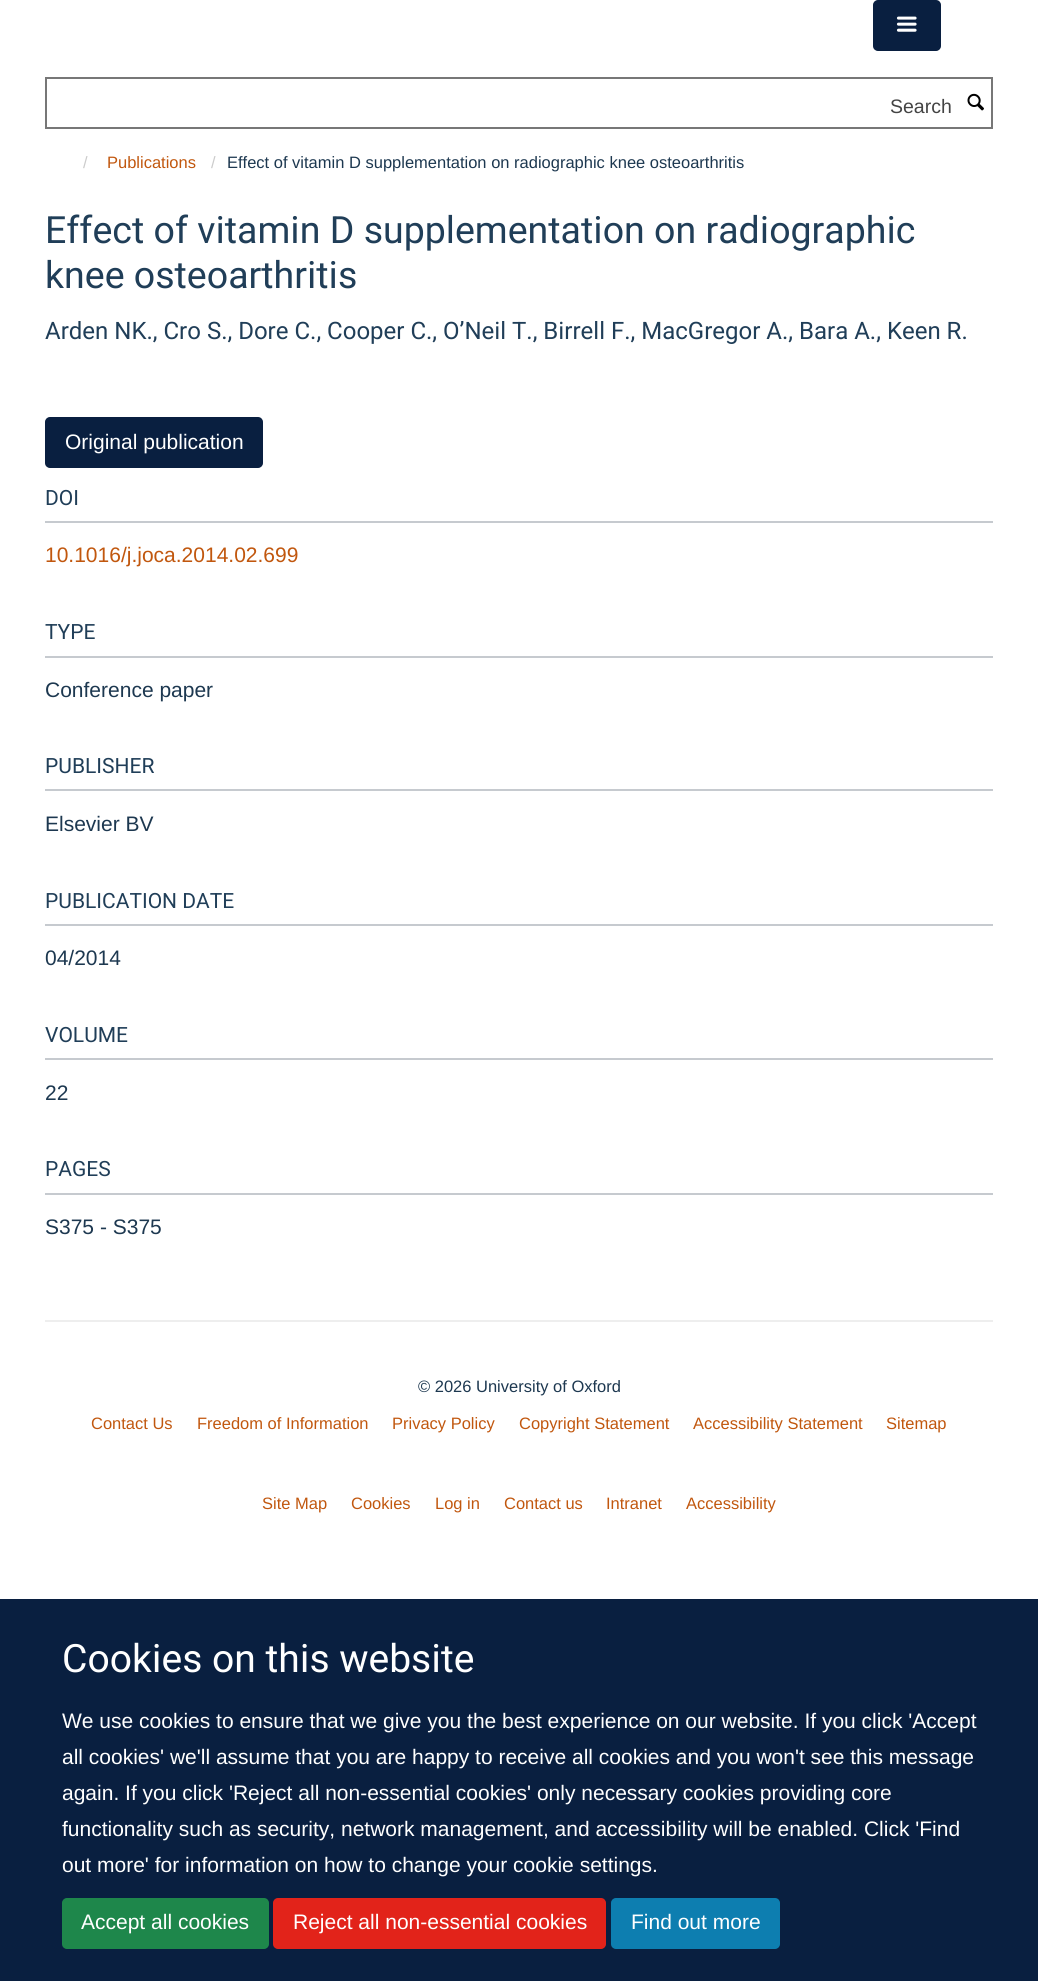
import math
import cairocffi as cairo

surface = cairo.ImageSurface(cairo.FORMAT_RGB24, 1038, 1981)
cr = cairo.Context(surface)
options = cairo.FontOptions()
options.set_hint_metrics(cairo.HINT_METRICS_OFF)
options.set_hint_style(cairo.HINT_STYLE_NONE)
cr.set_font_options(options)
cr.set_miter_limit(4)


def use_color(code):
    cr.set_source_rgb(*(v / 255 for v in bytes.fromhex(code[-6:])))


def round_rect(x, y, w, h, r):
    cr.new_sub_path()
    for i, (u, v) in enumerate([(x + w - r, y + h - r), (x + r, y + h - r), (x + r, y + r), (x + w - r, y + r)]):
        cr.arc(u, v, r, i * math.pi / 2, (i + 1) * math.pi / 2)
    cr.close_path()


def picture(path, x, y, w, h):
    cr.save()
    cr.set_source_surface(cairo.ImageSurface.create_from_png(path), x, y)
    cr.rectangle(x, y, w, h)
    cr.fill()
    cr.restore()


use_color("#ffffff")
cr.paint()
use_color("#091f40")
round_rect(874, 1, 66, 49, 4)
cr.fill_preserve()
cr.stroke()
picture("img1.png", 896, 16, 21, 16)
cr.rectangle(46, 78, 946, 50)
use_color("#777777")
cr.stroke()
cr.select_font_face("Liberation Sans")
cr.set_font_size(19.5)
use_color("#444444")
cr.move_to(890, 113)
cr.show_text("Search")
picture("img2.png", 967, 93, 17, 18)
cr.set_font_size(16.5)
use_color("#cccccc")
cr.move_to(83, 168)
cr.show_text("/")
use_color("#c1570e")
cr.move_to(107, 168)
cr.show_text("Publications")
use_color("#cccccc")
cr.move_to(211, 168)
cr.show_text("/")
use_color("#1d3850")
cr.move_to(227, 168)
cr.show_text("Effect of vitamin D supplementation on radiographic knee osteoarthritis")
cr.select_font_face("Heebo")
cr.set_font_size(37.5)
use_color("#203e58")
cr.move_to(45, 243)
cr.show_text("Effect of vitamin D supplementation on radiographic")
cr.move_to(45, 288)
cr.show_text("knee osteoarthritis")
cr.set_font_size(24)
cr.move_to(45, 339)
cr.show_text("Arden NK., Cro S., Dore C., Cooper C., O’Neil T., Birrell F., MacGregor A., Bara A., Keen R.")
use_color("#091f40")
round_rect(46, 418, 216, 49, 4)
cr.fill_preserve()
cr.stroke()
cr.select_font_face("Liberation Sans")
cr.set_font_size(21)
use_color("#ffffff")
cr.move_to(65, 449)
cr.show_text("Original publication")
use_color("#c6cacf")
cr.rectangle(45, 521, 948, 2)
cr.fill()
cr.select_font_face("Heebo")
use_color("#203e58")
cr.move_to(45, 505)
cr.show_text("DOI")
cr.select_font_face("Liberation Sans")
use_color("#c1570e")
cr.move_to(45, 562)
cr.show_text("10.1016/j.joca.2014.02.699")
use_color("#c6cacf")
cr.rectangle(45, 656, 948, 2)
cr.fill()
cr.select_font_face("Heebo")
use_color("#203e58")
cr.move_to(45, 639)
cr.show_text("TYPE")
cr.select_font_face("Liberation Sans")
use_color("#1d3850")
cr.move_to(45, 697)
cr.show_text("Conference paper")
use_color("#c6cacf")
cr.rectangle(45, 789, 948, 2)
cr.fill()
cr.select_font_face("Heebo")
use_color("#203e58")
cr.move_to(45, 773)
cr.show_text("PUBLISHER")
cr.select_font_face("Liberation Sans")
use_color("#1d3850")
cr.move_to(45, 831)
cr.show_text("Elsevier BV")
use_color("#c6cacf")
cr.rectangle(45, 924, 948, 2)
cr.fill()
cr.select_font_face("Heebo")
use_color("#203e58")
cr.move_to(45, 908)
cr.show_text("PUBLICATION DATE")
cr.select_font_face("Liberation Sans")
use_color("#1d3850")
cr.move_to(45, 965)
cr.show_text("04/2014")
use_color("#c6cacf")
cr.rectangle(45, 1058, 948, 2)
cr.fill()
cr.select_font_face("Heebo")
use_color("#203e58")
cr.move_to(45, 1042)
cr.show_text("VOLUME")
cr.select_font_face("Liberation Sans")
use_color("#1d3850")
cr.move_to(45, 1100)
cr.show_text("22")
use_color("#c6cacf")
cr.rectangle(45, 1193, 948, 2)
cr.fill()
cr.select_font_face("Heebo")
use_color("#203e58")
cr.move_to(45, 1176)
cr.show_text("PAGES")
cr.select_font_face("Liberation Sans")
use_color("#1d3850")
cr.move_to(45, 1234)
cr.show_text("S375 - S375")
use_color("#eeeeee")
cr.rectangle(45, 1320, 948, 2)
cr.fill()
cr.set_font_size(16.5)
use_color("#1d3850")
cr.move_to(418, 1392)
cr.show_text("© 2026 University of Oxford")
use_color("#c1570e")
cr.move_to(91, 1429)
cr.show_text("Contact Us")
cr.move_to(197, 1429)
cr.show_text("Freedom of Information")
cr.move_to(392, 1429)
cr.show_text("Privacy Policy")
cr.move_to(519, 1429)
cr.show_text("Copyright Statement")
cr.move_to(693, 1429)
cr.show_text("Accessibility Statement")
cr.move_to(886, 1429)
cr.show_text("Sitemap")
cr.move_to(262, 1509)
cr.show_text("Site Map")
cr.move_to(351, 1509)
cr.show_text("Cookies")
cr.move_to(435, 1509)
cr.show_text("Log in")
cr.move_to(504, 1509)
cr.show_text("Contact us")
cr.move_to(606, 1509)
cr.show_text("Intranet")
cr.move_to(686, 1509)
cr.show_text("Accessibility")
use_color("#091f40")
cr.rectangle(0, 1599, 1038, 382)
cr.fill()
cr.select_font_face("Heebo")
cr.set_font_size(39)
use_color("#ffffff")
cr.move_to(62, 1672)
cr.show_text("Cookies on this website")
cr.select_font_face("Liberation Sans")
cr.set_font_size(21)
cr.move_to(62, 1728)
cr.show_text("We use cookies to ensure that we give you the best experience on our website. If you click 'Accept")
cr.move_to(62, 1764)
cr.show_text("all cookies' we'll assume that you are happy to receive all cookies and you won't see this message")
cr.move_to(62, 1800)
cr.show_text("again. If you click 'Reject all non-essential cookies' only necessary cookies providing core")
cr.move_to(62, 1836)
cr.show_text("functionality such as security, network management, and accessibility will be enabled. Click 'Find")
cr.move_to(62, 1872)
cr.show_text("out more' for information on how to change your cookie settings.")
use_color("#1e874b")
round_rect(63, 1899, 205, 49, 4)
cr.fill_preserve()
cr.stroke()
use_color("#ffffff")
cr.move_to(81, 1929)
cr.show_text("Accept all cookies")
use_color("#e2231a")
round_rect(274, 1899, 331, 49, 4)
cr.fill_preserve()
cr.stroke()
use_color("#ffffff")
cr.move_to(293, 1929)
cr.show_text("Reject all non-essential cookies")
use_color("#0d7eb0")
round_rect(612, 1899, 167, 49, 4)
cr.fill_preserve()
cr.stroke()
use_color("#ffffff")
cr.move_to(631, 1929)
cr.show_text("Find out more")
surface.write_to_png("result.png")
